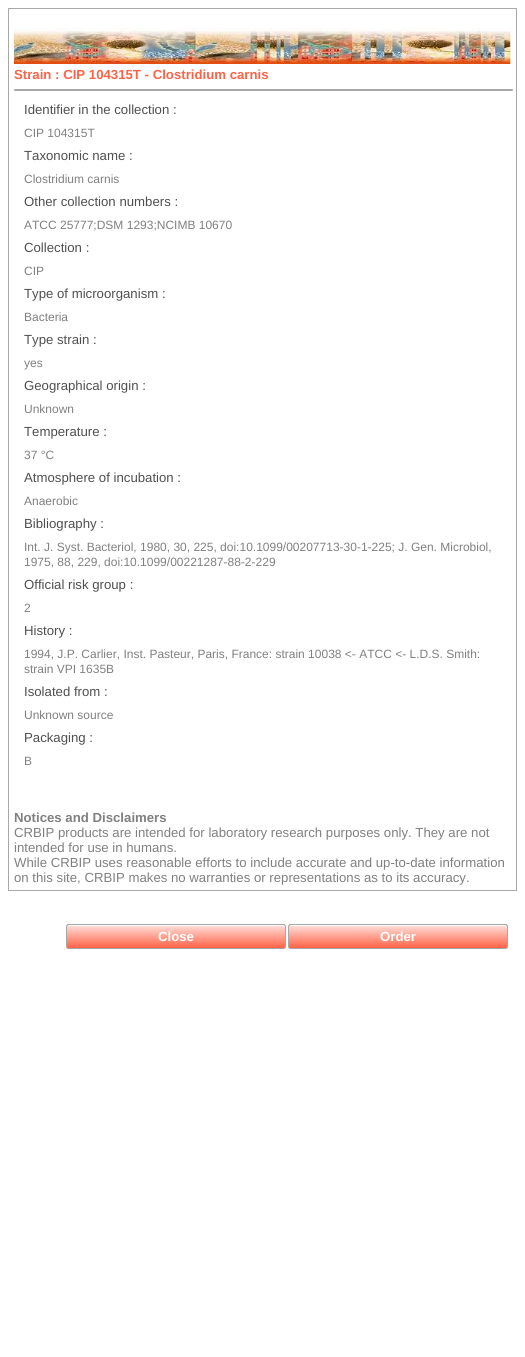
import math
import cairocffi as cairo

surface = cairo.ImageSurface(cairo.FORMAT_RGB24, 525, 1357)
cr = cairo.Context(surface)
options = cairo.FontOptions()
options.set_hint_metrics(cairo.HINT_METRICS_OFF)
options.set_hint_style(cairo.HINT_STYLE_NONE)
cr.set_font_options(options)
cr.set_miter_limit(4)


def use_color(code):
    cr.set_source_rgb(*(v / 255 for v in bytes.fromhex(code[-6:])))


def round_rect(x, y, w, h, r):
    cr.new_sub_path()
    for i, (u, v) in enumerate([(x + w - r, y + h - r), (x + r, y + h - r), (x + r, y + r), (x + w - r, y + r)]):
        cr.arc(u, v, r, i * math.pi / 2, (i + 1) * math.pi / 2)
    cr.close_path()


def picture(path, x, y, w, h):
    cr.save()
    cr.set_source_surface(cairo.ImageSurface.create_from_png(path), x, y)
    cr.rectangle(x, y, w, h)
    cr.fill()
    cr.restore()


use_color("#ffffff")
cr.paint()
cr.rectangle(8.5, 8.5, 508, 882)
use_color("#a8a8a8")
cr.set_line_width(1)
cr.stroke()
picture("img1.png", 14, 28, 497, 36)
cr.select_font_face("Liberation Sans", cairo.FONT_SLANT_NORMAL, cairo.FONT_WEIGHT_BOLD)
cr.set_font_size(13.2)
use_color("#ff6347")
cr.move_to(14, 79)
cr.show_text("Strain : CIP 104315T - Clostridium carnis")
use_color("#a8a8a8")
round_rect(14, 89, 499, 2, 1)
cr.fill()
cr.select_font_face("Liberation Sans")
use_color("#4f4f4f")
cr.move_to(24, 114)
cr.show_text("Identifier in the collection :")
cr.set_font_size(12)
use_color("#808080")
cr.move_to(24, 137)
cr.show_text("CIP 104315T")
cr.set_font_size(13.2)
use_color("#4f4f4f")
cr.move_to(24, 160)
cr.show_text("Taxonomic name :")
cr.set_font_size(12)
use_color("#808080")
cr.move_to(24, 183)
cr.show_text("Clostridium carnis")
cr.set_font_size(13.2)
use_color("#4f4f4f")
cr.move_to(24, 206)
cr.show_text("Other collection numbers :")
cr.set_font_size(12)
use_color("#808080")
cr.move_to(24, 229)
cr.show_text("ATCC 25777;DSM 1293;NCIMB 10670")
cr.set_font_size(13.2)
use_color("#4f4f4f")
cr.move_to(24, 252)
cr.show_text("Collection :")
cr.set_font_size(12)
use_color("#808080")
cr.move_to(24, 275)
cr.show_text("CIP")
cr.set_font_size(13.2)
use_color("#4f4f4f")
cr.move_to(24, 298)
cr.show_text("Type of microorganism :")
cr.set_font_size(12)
use_color("#808080")
cr.move_to(24, 321)
cr.show_text("Bacteria")
cr.set_font_size(13.2)
use_color("#4f4f4f")
cr.move_to(24, 344)
cr.show_text("Type strain :")
cr.set_font_size(12)
use_color("#808080")
cr.move_to(24, 367)
cr.show_text("yes")
cr.set_font_size(13.2)
use_color("#4f4f4f")
cr.move_to(24, 390)
cr.show_text("Geographical origin :")
cr.set_font_size(12)
use_color("#808080")
cr.move_to(24, 413)
cr.show_text("Unknown")
cr.set_font_size(13.2)
use_color("#4f4f4f")
cr.move_to(24, 436)
cr.show_text("Temperature :")
cr.set_font_size(12)
use_color("#808080")
cr.move_to(24, 459)
cr.show_text("37 °C")
cr.set_font_size(13.2)
use_color("#4f4f4f")
cr.move_to(24, 482)
cr.show_text("Atmosphere of incubation :")
cr.set_font_size(12)
use_color("#808080")
cr.move_to(24, 505)
cr.show_text("Anaerobic")
cr.set_font_size(13.2)
use_color("#4f4f4f")
cr.move_to(24, 528)
cr.show_text("Bibliography :")
cr.set_font_size(12)
use_color("#808080")
cr.move_to(24, 551)
cr.show_text("Int. J. Syst. Bacteriol, 1980, 30, 225, doi:10.1099/00207713-30-1-225; J. Gen. Microbiol,")
cr.move_to(24, 566)
cr.show_text("1975, 88, 229, doi:10.1099/00221287-88-2-229")
cr.set_font_size(13.2)
use_color("#4f4f4f")
cr.move_to(24, 589)
cr.show_text("Official risk group :")
cr.set_font_size(12)
use_color("#808080")
cr.move_to(24, 612)
cr.show_text("2")
cr.set_font_size(13.2)
use_color("#4f4f4f")
cr.move_to(24, 635)
cr.show_text("History :")
cr.set_font_size(12)
use_color("#808080")
cr.move_to(24, 658)
cr.show_text("1994, J.P. Carlier, Inst. Pasteur, Paris, France: strain 10038 <- ATCC <- L.D.S. Smith:")
cr.move_to(24, 673)
cr.show_text("strain VPI 1635B")
cr.set_font_size(13.2)
use_color("#4f4f4f")
cr.move_to(24, 696)
cr.show_text("Isolated from :")
cr.set_font_size(12)
use_color("#808080")
cr.move_to(24, 719)
cr.show_text("Unknown source")
cr.set_font_size(13.2)
use_color("#4f4f4f")
cr.move_to(24, 742)
cr.show_text("Packaging :")
cr.set_font_size(12)
use_color("#808080")
cr.move_to(24, 765)
cr.show_text("B")
cr.select_font_face("Liberation Sans", cairo.FONT_SLANT_NORMAL, cairo.FONT_WEIGHT_BOLD)
cr.set_font_size(13.2)
cr.move_to(14, 822)
cr.show_text("Notices and Disclaimers")
cr.select_font_face("Liberation Sans")
cr.move_to(14, 837)
cr.show_text("CRBIP products are intended for laboratory research purposes only. They are not")
cr.move_to(14, 852)
cr.show_text("intended for use in humans.")
cr.move_to(14, 867)
cr.show_text("While CRBIP uses reasonable efforts to include accurate and up-to-date information")
cr.move_to(14, 882)
cr.show_text("on this site, CRBIP makes no warranties or representations as to its accuracy.")
use_color("#ff6347")
round_rect(66, 924, 220, 25, 3)
cr.fill()
cr.save()
round_rect(66, 924, 220, 25, 3)
cr.clip()
gradient = cairo.LinearGradient(67, 925, 67, 948)
gradient.add_color_stop_rgba(0, 1, 1, 1, 0.8)
gradient.add_color_stop_rgba(1, 1, 1, 1, 0)
cr.set_source(gradient)
cr.rectangle(66, 925, 220, 22)
cr.fill()
cr.restore()
use_color("#ffffff")
cr.new_path()
cr.move_to(69, 926)
cr.line_to(283, 926)
cr.curve_to(284, 926, 285, 927, 285, 928)
cr.curve_to(285, 927, 285, 925, 283, 925)
cr.line_to(69, 925)
cr.line_to(68, 926)
cr.line_to(67, 928)
cr.curve_to(67, 927, 68, 926, 69, 926)
cr.close_path()
cr.fill()
round_rect(66.5, 924.5, 219, 24, 2.5)
use_color("#a8a8a8")
cr.stroke()
cr.select_font_face("Liberation Sans", cairo.FONT_SLANT_NORMAL, cairo.FONT_WEIGHT_BOLD)
use_color("#ffffff")
cr.move_to(158, 941)
cr.show_text("Close")
use_color("#ff6347")
round_rect(288, 924, 220, 25, 3)
cr.fill()
cr.save()
round_rect(288, 924, 220, 25, 3)
cr.clip()
gradient = cairo.LinearGradient(289, 925, 289, 948)
gradient.add_color_stop_rgba(0, 1, 1, 1, 0.8)
gradient.add_color_stop_rgba(1, 1, 1, 1, 0)
cr.set_source(gradient)
cr.rectangle(288, 925, 220, 22)
cr.fill()
cr.restore()
use_color("#ffffff")
cr.new_path()
cr.move_to(291, 926)
cr.line_to(505, 926)
cr.curve_to(506, 926, 507, 927, 507, 928)
cr.curve_to(507, 927, 507, 925, 505, 925)
cr.line_to(291, 925)
cr.line_to(290, 926)
cr.line_to(289, 928)
cr.curve_to(289, 927, 290, 926, 291, 926)
cr.close_path()
cr.fill()
round_rect(288.5, 924.5, 219, 24, 2.5)
use_color("#a8a8a8")
cr.stroke()
use_color("#ffffff")
cr.move_to(380, 941)
cr.show_text("Order")
surface.write_to_png("result.png")
